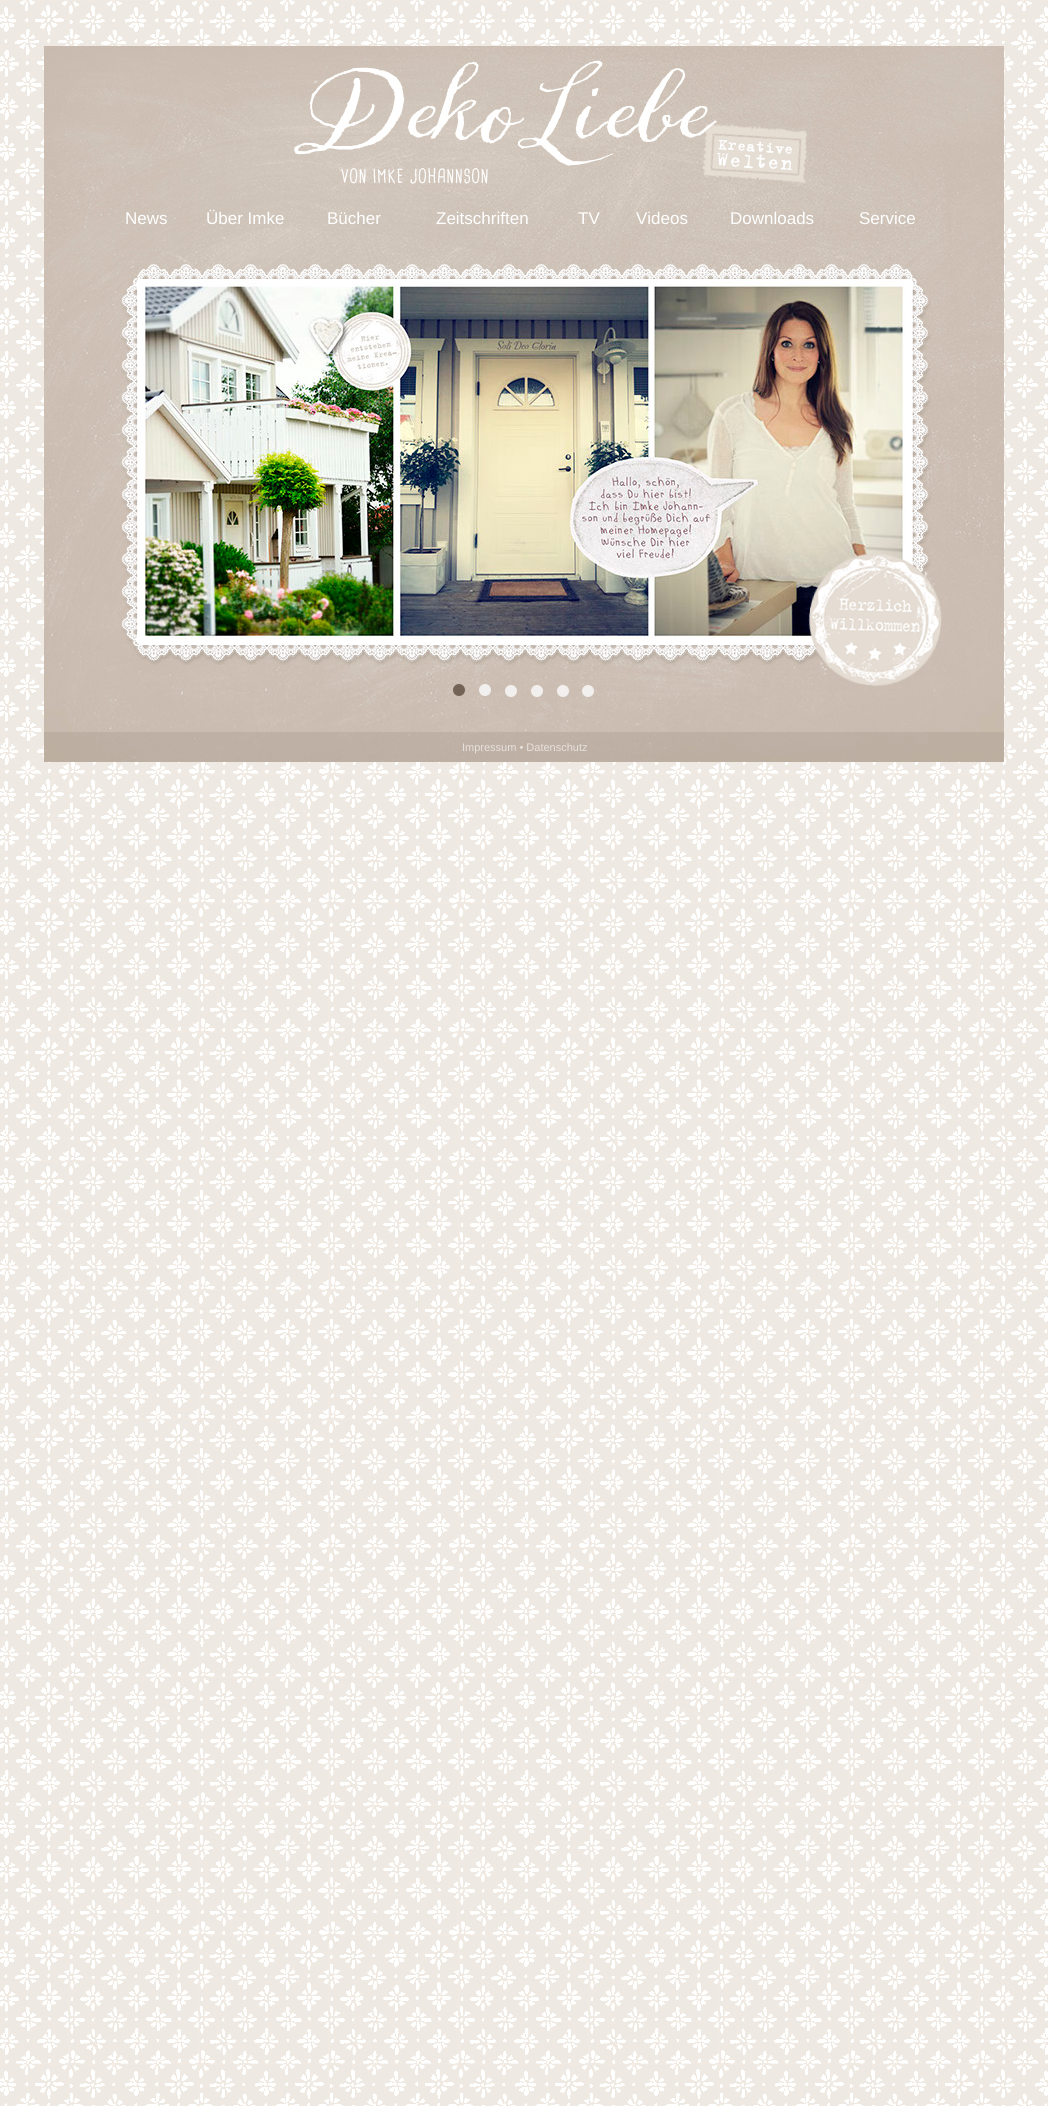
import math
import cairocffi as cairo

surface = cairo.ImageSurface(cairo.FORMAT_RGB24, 1048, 2106)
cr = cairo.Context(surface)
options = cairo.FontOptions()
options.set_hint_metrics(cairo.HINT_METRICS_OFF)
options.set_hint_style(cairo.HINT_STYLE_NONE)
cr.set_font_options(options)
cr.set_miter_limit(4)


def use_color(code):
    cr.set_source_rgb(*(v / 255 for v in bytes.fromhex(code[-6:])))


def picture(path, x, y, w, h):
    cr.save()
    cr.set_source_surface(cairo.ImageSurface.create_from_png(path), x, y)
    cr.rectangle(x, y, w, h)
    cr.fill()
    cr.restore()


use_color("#ffffff")
cr.paint()
picture("img1.png", 0, 0, 1048, 2106)
picture("img2.png", 44, 46, 960, 716)
cr.select_font_face("Liberation Sans")
cr.set_font_size(17)
use_color("#ffffff")
cr.move_to(125, 224)
cr.show_text("News")
cr.move_to(206, 224)
cr.show_text("Über Imke")
cr.move_to(327, 224)
cr.show_text("Bücher")
cr.move_to(436, 224)
cr.show_text("Zeitschriften")
cr.move_to(578, 224)
cr.show_text("TV")
cr.move_to(636, 224)
cr.show_text("Videos")
cr.move_to(730, 224)
cr.show_text("Downloads")
cr.move_to(859, 224)
cr.show_text("Service")
picture("img3.png", 121, 264, 810, 401)
cr.rectangle(138, 279, 771, 365)
cr.fill()
picture("img4.png", 145, 279, 760, 360)
use_color("#736357")
cr.arc(459, 690, 6, 0, 2 * math.pi)
cr.fill()
use_color("#f2f0ee")
cr.arc(485, 690, 6, 0, 2 * math.pi)
cr.fill()
cr.arc(511, 691, 6, 0, 2 * math.pi)
cr.fill()
cr.arc(537, 691, 6, 0, 2 * math.pi)
cr.fill()
cr.arc(563, 691, 6, 0, 2 * math.pi)
cr.fill()
cr.arc(588, 691, 6, 0, 2 * math.pi)
cr.fill()
picture("img5.png", 808, 553, 134, 133)
cr.set_source_rgba(0.627, 0.576, 0.533, 0.3)
cr.rectangle(44, 732, 960, 30)
cr.fill()
cr.set_font_size(11)
use_color("#e7e2dd")
cr.move_to(462, 751)
cr.show_text("Impressum • Datenschutz")
surface.write_to_png("result.png")
